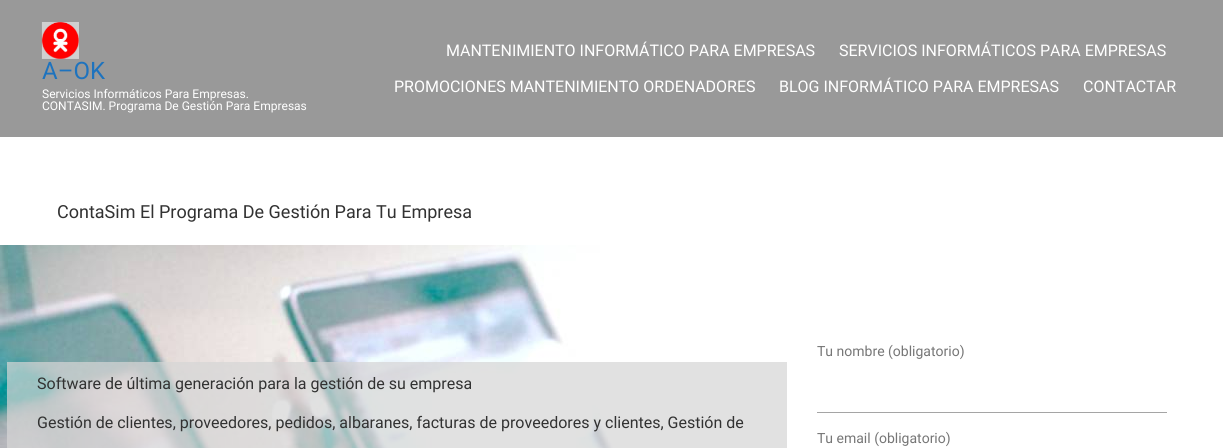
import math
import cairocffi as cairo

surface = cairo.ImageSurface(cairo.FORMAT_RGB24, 1223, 448)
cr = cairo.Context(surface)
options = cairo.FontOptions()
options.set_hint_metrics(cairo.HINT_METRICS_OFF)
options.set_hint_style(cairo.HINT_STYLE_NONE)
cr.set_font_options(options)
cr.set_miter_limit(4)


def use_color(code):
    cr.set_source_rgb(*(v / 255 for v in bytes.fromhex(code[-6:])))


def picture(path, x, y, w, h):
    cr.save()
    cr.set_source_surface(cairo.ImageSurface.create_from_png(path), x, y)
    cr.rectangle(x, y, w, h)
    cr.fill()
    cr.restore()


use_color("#ffffff")
cr.paint()
use_color("#999999")
cr.rectangle(0, 0, 1223, 137)
cr.fill()
picture("img1.png", 41, 22, 38, 37)
cr.select_font_face("Roboto")
cr.set_font_size(24)
use_color("#1e73be")
cr.move_to(42, 79)
cr.show_text("A–OK")
cr.set_font_size(12)
use_color("#ffffff")
cr.move_to(42, 98)
cr.show_text("Servicios Informáticos Para Empresas.")
cr.move_to(42, 110)
cr.show_text("CONTASIM. Programa De Gestión Para Empresas")
cr.set_font_size(16)
cr.move_to(446, 56)
cr.show_text("MANTENIMIENTO INFORMÁTICO PARA EMPRESAS")
cr.move_to(839, 56)
cr.show_text("SERVICIOS INFORMÁTICOS PARA EMPRESAS")
cr.move_to(394, 92)
cr.show_text("PROMOCIONES MANTENIMIENTO ORDENADORES")
cr.move_to(779, 92)
cr.show_text("BLOG INFORMÁTICO PARA EMPRESAS")
cr.move_to(1083, 92)
cr.show_text("CONTACTAR")
cr.set_font_size(18)
use_color("#323232")
cr.move_to(57, 218)
cr.show_text("ContaSim El Programa De Gestión Para Tu Empresa")
picture("img2.png", 0, 245, 613, 203)
cr.set_source_rgba(0.839, 0.839, 0.839, 0.72)
cr.rectangle(7, 362, 780, 86)
cr.fill()
cr.set_font_size(16)
use_color("#323232")
cr.move_to(37, 389)
cr.show_text("Software de última generación para la gestión de su empresa")
cr.move_to(37, 428)
cr.show_text("Gestión de clientes, proveedores, pedidos, albaranes, facturas de proveedores y clientes, Gestión de")
cr.set_font_size(14)
use_color("#767676")
cr.move_to(817, 356)
cr.show_text("Tu nombre (obligatorio)")
use_color("#a5a5a5")
cr.rectangle(817, 412, 350, 1)
cr.fill()
use_color("#767676")
cr.move_to(817, 443)
cr.show_text("Tu email (obligatorio)")
surface.write_to_png("result.png")
